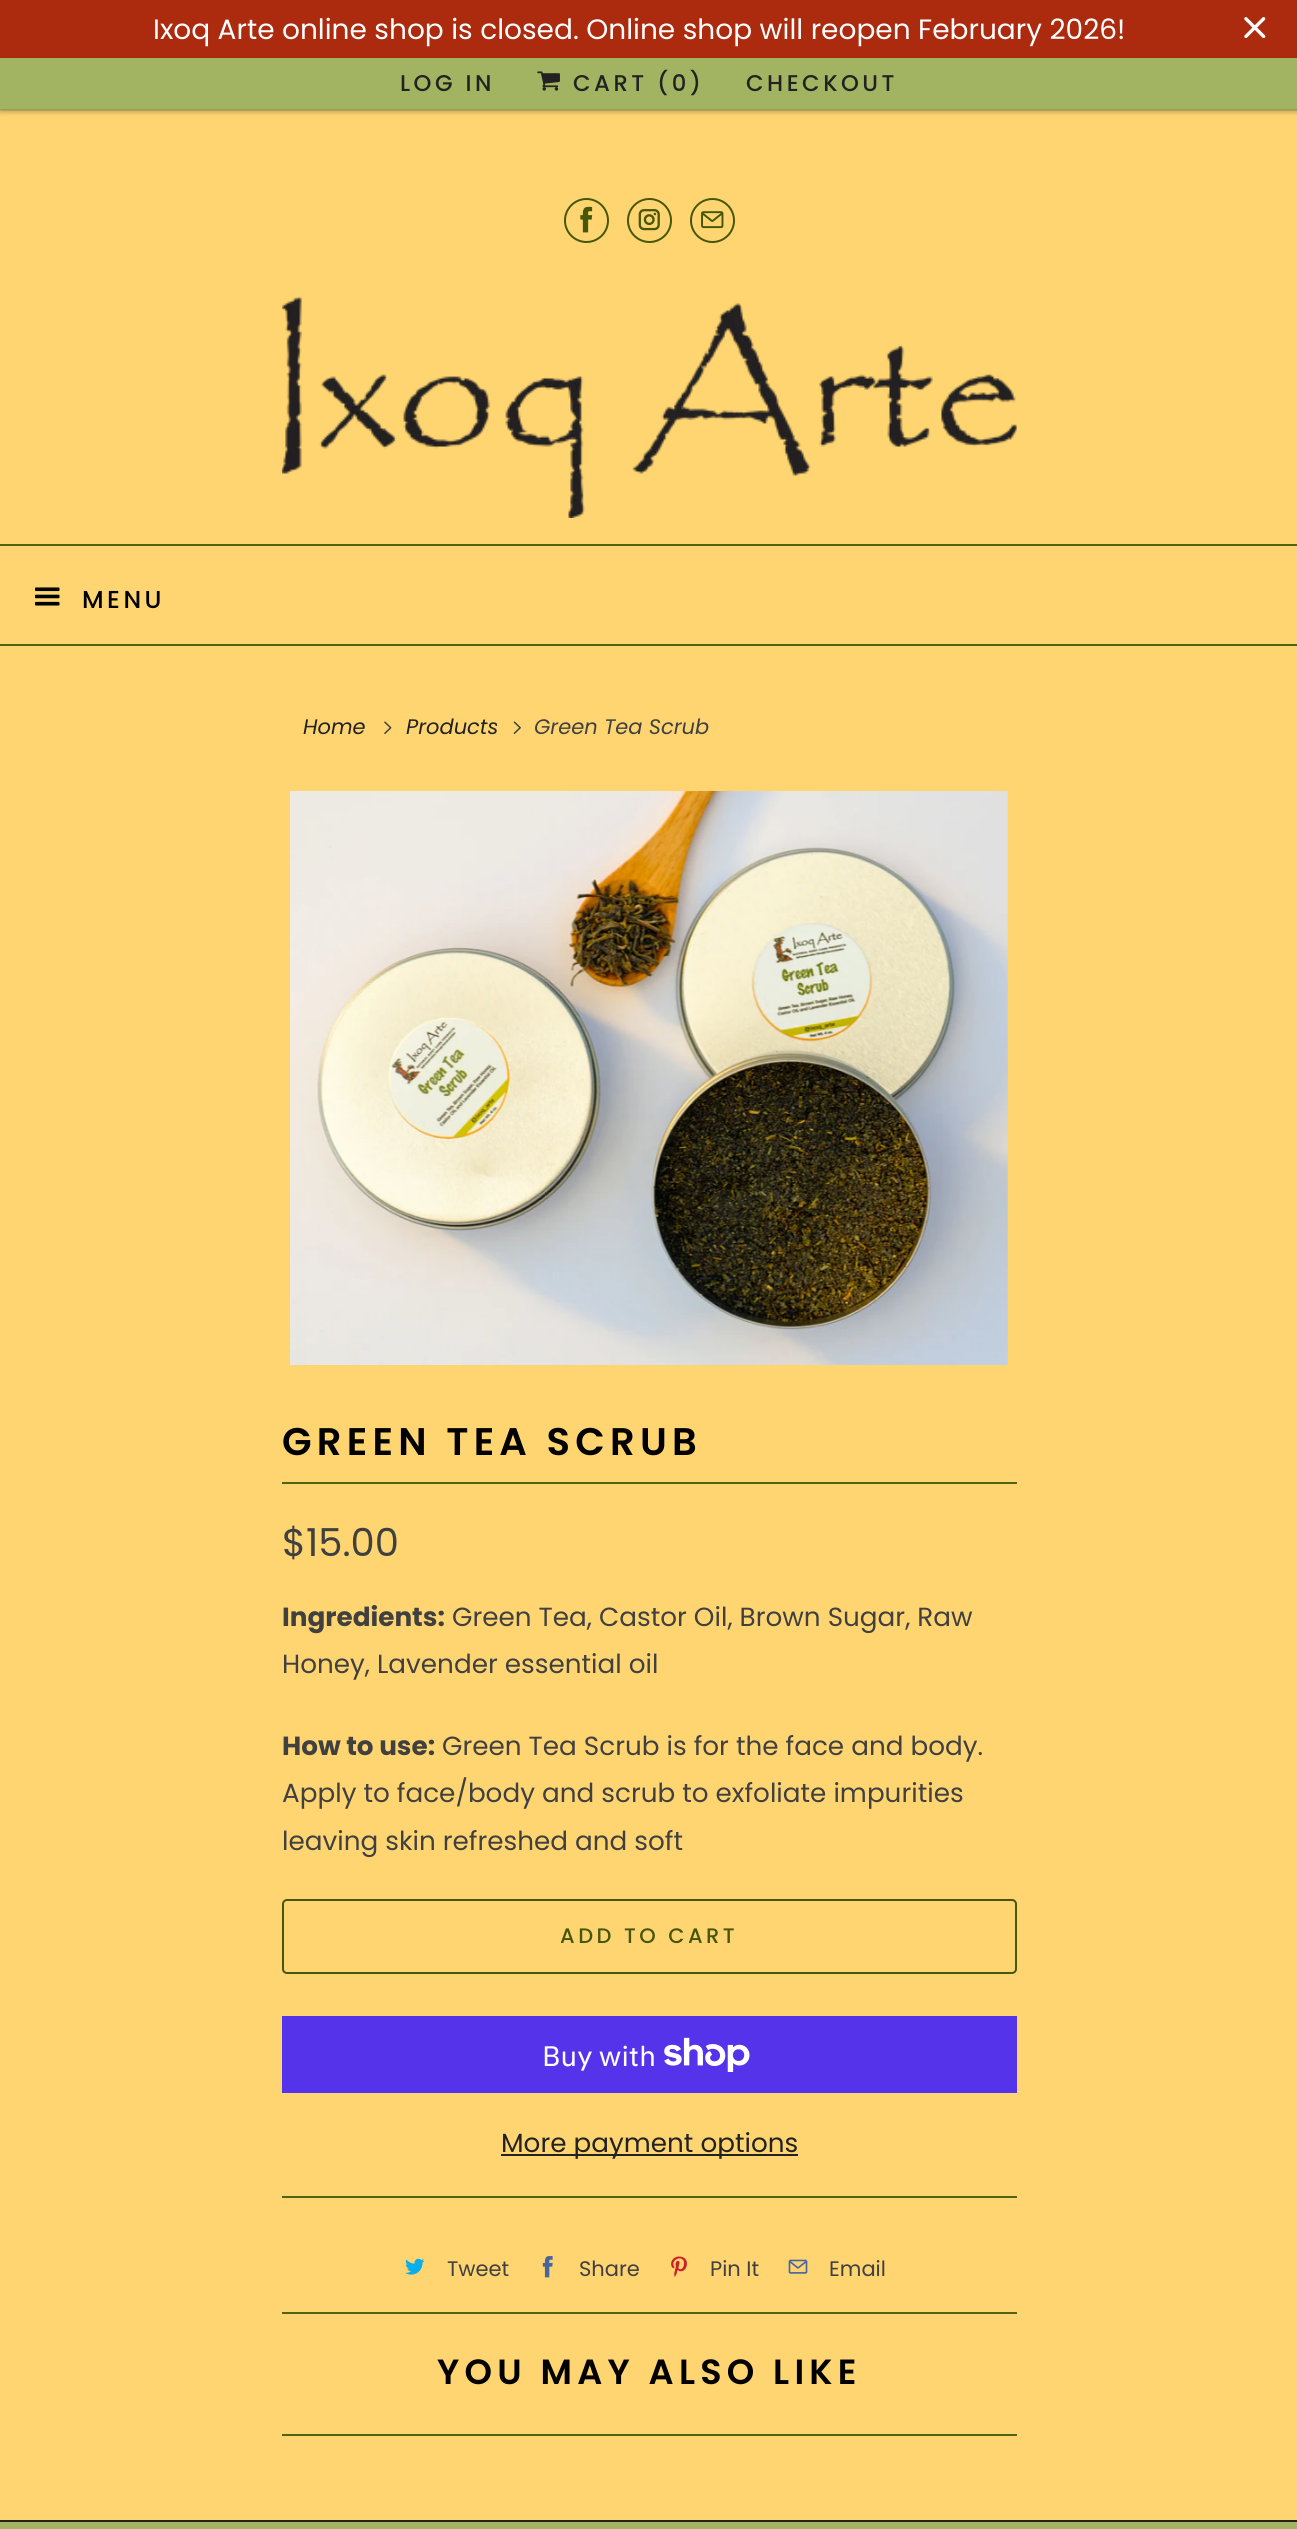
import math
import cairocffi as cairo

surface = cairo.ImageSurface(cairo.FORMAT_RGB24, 1297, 2529)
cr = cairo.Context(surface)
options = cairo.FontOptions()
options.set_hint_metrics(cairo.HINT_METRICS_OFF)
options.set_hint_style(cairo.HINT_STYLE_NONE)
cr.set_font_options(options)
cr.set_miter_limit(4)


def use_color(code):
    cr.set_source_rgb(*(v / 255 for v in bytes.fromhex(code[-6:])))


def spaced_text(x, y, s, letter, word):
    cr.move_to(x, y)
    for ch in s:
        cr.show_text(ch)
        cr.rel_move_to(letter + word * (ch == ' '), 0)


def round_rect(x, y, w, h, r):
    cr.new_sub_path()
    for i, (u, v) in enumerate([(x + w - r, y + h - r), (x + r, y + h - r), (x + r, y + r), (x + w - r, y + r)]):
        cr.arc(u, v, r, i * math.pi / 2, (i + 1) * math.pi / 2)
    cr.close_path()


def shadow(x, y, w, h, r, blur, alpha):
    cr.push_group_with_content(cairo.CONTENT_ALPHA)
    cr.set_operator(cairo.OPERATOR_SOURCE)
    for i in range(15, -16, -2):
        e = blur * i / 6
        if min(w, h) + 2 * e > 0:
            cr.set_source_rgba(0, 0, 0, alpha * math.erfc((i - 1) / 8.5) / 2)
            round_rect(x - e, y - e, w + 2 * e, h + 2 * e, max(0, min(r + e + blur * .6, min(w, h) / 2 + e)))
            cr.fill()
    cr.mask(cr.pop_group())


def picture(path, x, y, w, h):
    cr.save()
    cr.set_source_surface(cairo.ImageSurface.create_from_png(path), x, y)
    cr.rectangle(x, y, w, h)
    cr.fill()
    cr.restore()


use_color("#ffd571")
cr.paint()
use_color("#ac2b0f")
cr.rectangle(0, 0, 1297, 58)
cr.fill()
cr.select_font_face("Poppins")
cr.set_font_size(28)
use_color("#ffffff")
cr.move_to(153, 39)
cr.show_text("Ixoq Arte online shop is closed. Online shop will reopen February 2026!")
picture("img1.png", 1244, 17, 22, 22)
use_color("#000000")
shadow(0, 60, 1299, 52, 0, 2.5, 0.25)
use_color("#a2b361")
cr.rectangle(0, 58, 1297, 52)
cr.fill()
cr.set_source_rgba(0, 0, 0, 0.1)
cr.rectangle(0, 109, 1297, 2)
cr.fill()
cr.select_font_face("Poppins Medium")
cr.set_font_size(22.75)
use_color("#222222")
spaced_text(400, 91, "LOG IN", 3.5, 0)
picture("img2.png", 537, 71, 23, 20)
spaced_text(573, 91, "CART (0)", 3.5, 0)
spaced_text(746, 91, "CHECKOUT", 3.5, 0)
cr.new_path()
cr.arc(586.5, 220.5, 21.5, 0, 2 * math.pi)
use_color("#46560a")
cr.stroke()
picture("img3.png", 580, 206, 13, 27)
cr.arc(649.5, 220.5, 21.5, 0, 2 * math.pi)
cr.stroke()
picture("img4.png", 638, 209, 22, 22)
cr.arc(712.5, 220.5, 21.5, 0, 2 * math.pi)
cr.stroke()
picture("img5.png", 701, 211, 23, 18)
picture("img6.png", 281, 296, 736, 222)
use_color("#526311")
cr.rectangle(0, 544, 1297, 2)
cr.fill()
cr.rectangle(0, 644, 1297, 2)
cr.fill()
picture("img7.png", 35, 587, 25, 19)
cr.set_font_size(24.5)
use_color("#000000")
spaced_text(82, 608, "MENU", 3.5, 0)
cr.select_font_face("Poppins", cairo.FONT_SLANT_ITALIC)
cr.set_font_size(21)
use_color("#222222")
cr.move_to(303, 734)
cr.show_text("Home")
picture("img8.png", 384, 721, 8, 13)
cr.move_to(406, 734)
cr.show_text("Products")
picture("img9.png", 513, 721, 8, 13)
use_color("#404040")
cr.move_to(534, 734)
cr.show_text("Green Tea Scrub")
picture("img10.png", 290, 791, 718, 574)
use_color("#526311")
cr.rectangle(282, 1482, 735, 2)
cr.fill()
cr.select_font_face("Poppins SemiBold")
cr.set_font_size(38.5)
use_color("#000000")
spaced_text(282, 1455, "GREEN TEA SCRUB", 5.25, 0)
cr.select_font_face("Poppins")
use_color("#404040")
cr.move_to(282, 1556)
cr.show_text("$15.00")
cr.select_font_face("Poppins", cairo.FONT_SLANT_NORMAL, cairo.FONT_WEIGHT_BOLD)
cr.set_font_size(26.25)
cr.move_to(282, 1626)
cr.show_text("Ingredients:")
cr.select_font_face("Poppins")
cr.move_to(452, 1626)
cr.show_text("Green Tea, Castor Oil, Brown Sugar, Raw")
cr.move_to(282, 1673)
cr.show_text("Honey, Lavender essential oil")
cr.select_font_face("Poppins", cairo.FONT_SLANT_NORMAL, cairo.FONT_WEIGHT_BOLD)
cr.move_to(282, 1755)
cr.show_text("How to use:")
cr.select_font_face("Poppins")
cr.move_to(442, 1755)
cr.show_text("Green Tea Scrub is for the face and body.")
cr.move_to(282, 1802)
cr.show_text("Apply to face/body and scrub to exfoliate impurities")
cr.move_to(282, 1850)
cr.show_text("leaving skin refreshed and soft")
round_rect(283, 1900, 733, 73, 4)
use_color("#46560a")
cr.stroke()
cr.select_font_face("Poppins Medium")
cr.set_font_size(21)
spaced_text(560, 1943, "ADD TO CART", 3.5, 0)
use_color("#5433eb")
cr.rectangle(282, 2016, 735, 77)
cr.fill()
cr.select_font_face("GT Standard")
cr.set_font_size(28)
use_color("#ffffff")
cr.move_to(542, 2066)
cr.show_text("Buy with")
picture("img11.png", 664, 2037, 86, 35)
use_color("#222222")
cr.rectangle(501, 2154, 297, 2)
cr.fill()
cr.select_font_face("Poppins")
cr.set_font_size(26.25)
cr.move_to(501, 2152)
cr.show_text("More payment options")
use_color("#526311")
cr.rectangle(282, 2196, 735, 2)
cr.fill()
picture("img12.png", 405, 2258, 20, 17)
cr.set_font_size(21)
use_color("#404040")
cr.move_to(447, 2276)
cr.show_text("Tweet")
picture("img13.png", 542, 2256, 11, 22)
cr.move_to(579, 2276)
cr.show_text("Share")
picture("img14.png", 671, 2256, 16, 21)
cr.move_to(710, 2276)
cr.show_text("Pin It")
picture("img15.png", 788, 2259, 20, 15)
cr.move_to(829, 2276)
cr.show_text("Email")
use_color("#526311")
cr.rectangle(282, 2312, 735, 2)
cr.fill()
cr.rectangle(282, 2434, 735, 2)
cr.fill()
cr.select_font_face("Poppins SemiBold")
cr.set_font_size(35)
use_color("#000000")
spaced_text(437, 2384, "YOU MAY ALSO LIKE", 5.25, 0)
use_color("#a2b361")
cr.rectangle(0, 2522, 1297, 7)
cr.fill()
use_color("#222222")
cr.rectangle(0, 2520, 1297, 2)
cr.fill()
surface.write_to_png("result.png")
